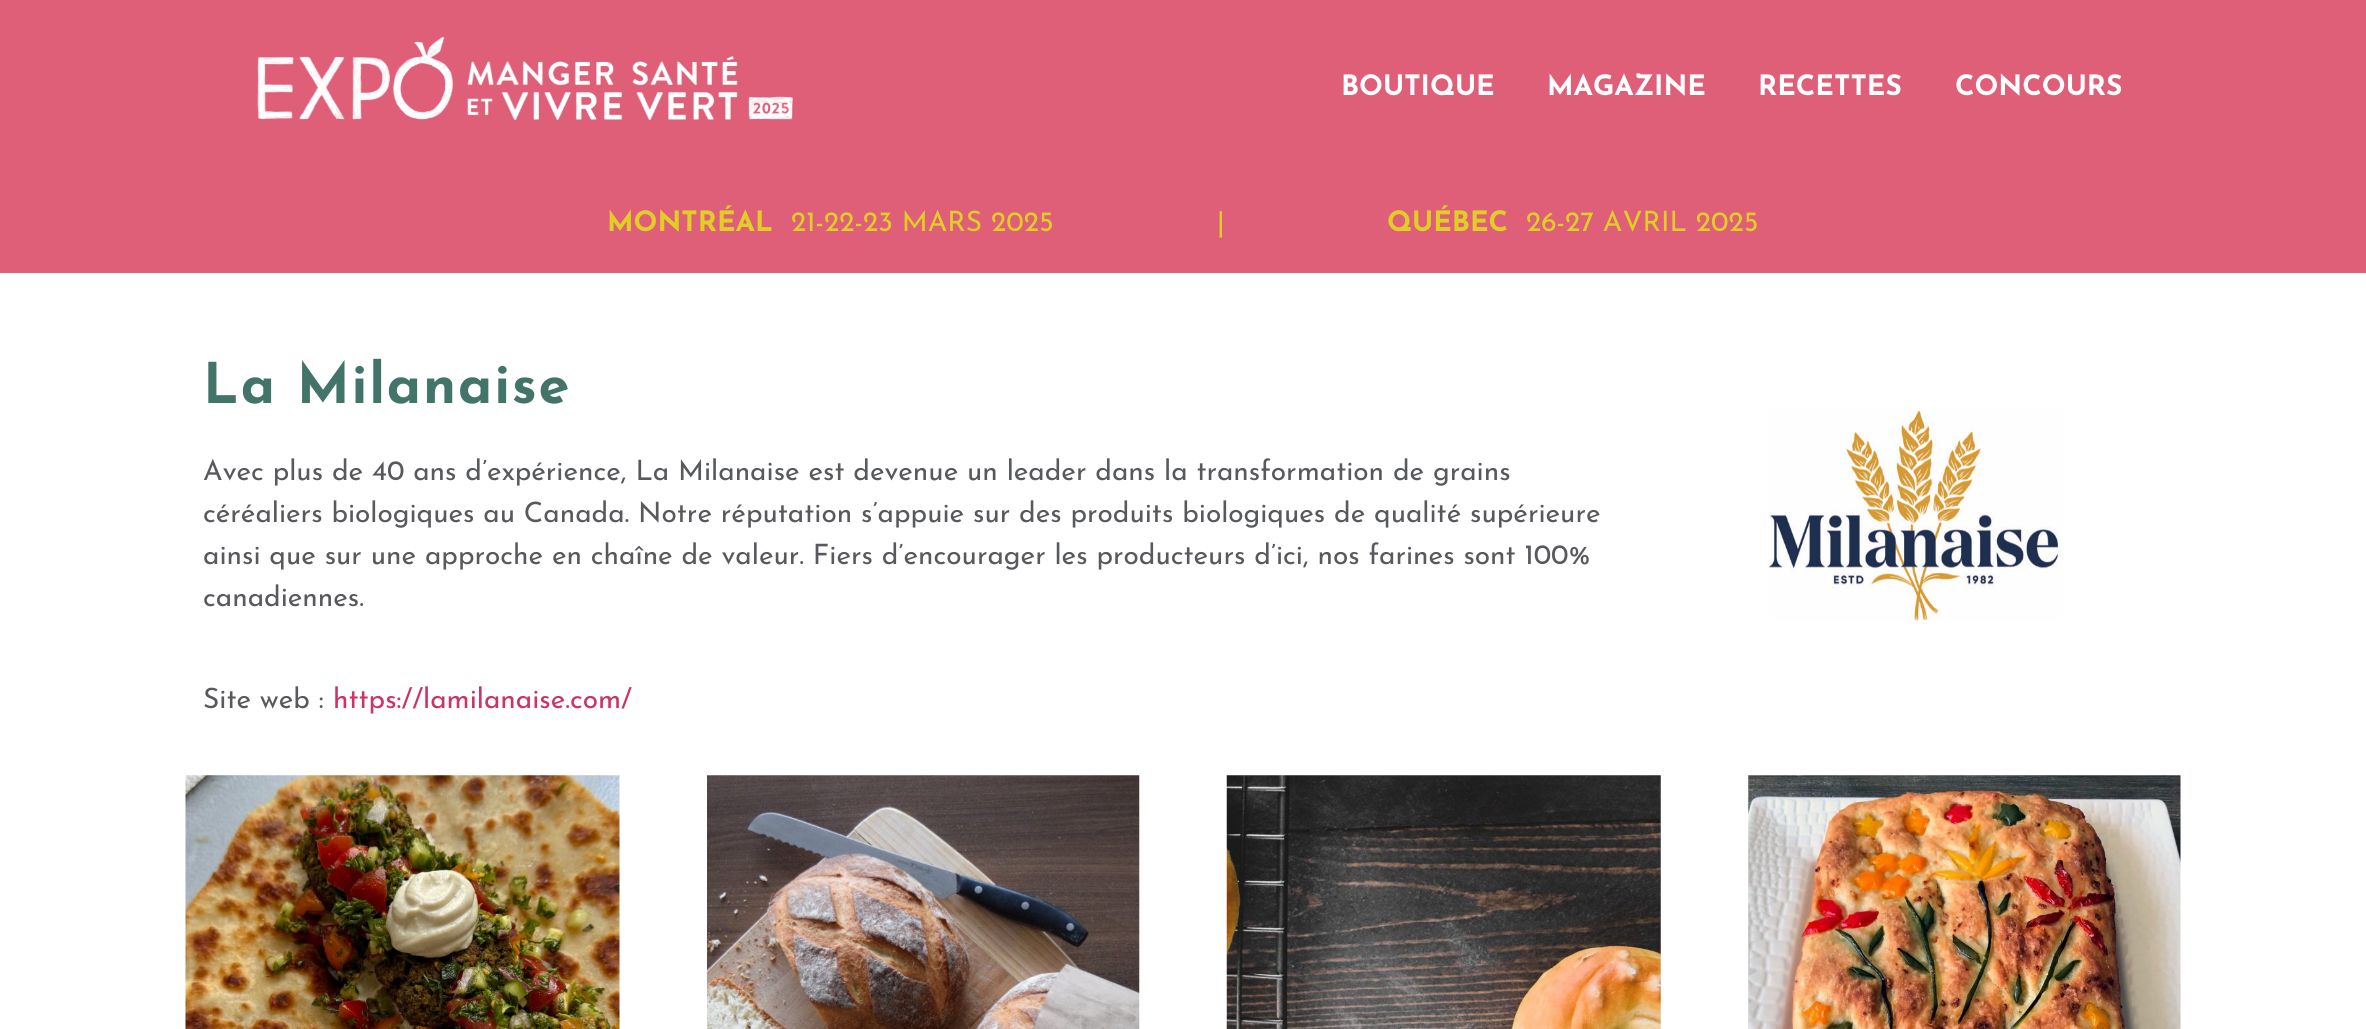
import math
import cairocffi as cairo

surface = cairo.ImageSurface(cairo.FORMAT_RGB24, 2366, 1029)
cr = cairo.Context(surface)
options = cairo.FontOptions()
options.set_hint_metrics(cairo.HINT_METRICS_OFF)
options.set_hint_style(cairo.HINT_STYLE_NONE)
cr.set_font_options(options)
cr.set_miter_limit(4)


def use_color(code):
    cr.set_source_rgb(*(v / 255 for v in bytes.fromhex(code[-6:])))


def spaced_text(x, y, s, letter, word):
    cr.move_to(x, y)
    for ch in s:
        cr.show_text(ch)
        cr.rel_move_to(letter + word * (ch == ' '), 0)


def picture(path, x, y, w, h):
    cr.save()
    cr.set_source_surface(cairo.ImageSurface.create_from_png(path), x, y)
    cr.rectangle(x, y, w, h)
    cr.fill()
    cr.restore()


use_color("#ffffff")
cr.paint()
use_color("#df5f78")
cr.rectangle(0, 0, 2366, 273)
cr.fill()
picture("img1.png", 257, 36, 536, 85)
cr.select_font_face("Josefin Sans", cairo.FONT_SLANT_NORMAL, cairo.FONT_WEIGHT_BOLD)
cr.set_font_size(28)
use_color("#ffffff")
cr.move_to(1341, 95)
cr.show_text("BOUTIQUE")
cr.move_to(1547, 95)
cr.show_text("MAGAZINE")
cr.move_to(1758, 95)
cr.show_text("RECETTES")
cr.move_to(1955, 95)
cr.show_text("CONCOURS")
use_color("#e0ce25")
cr.move_to(607, 231)
cr.show_text("MONTRÉAL")
cr.select_font_face("Josefin Sans")
cr.move_to(791, 231)
cr.show_text("21-22-23 MARS 2025")
cr.move_to(1217, 231)
cr.show_text("|")
cr.select_font_face("Josefin Sans", cairo.FONT_SLANT_NORMAL, cairo.FONT_WEIGHT_BOLD)
cr.move_to(1387, 231)
cr.show_text("QUÉBEC")
cr.select_font_face("Josefin Sans")
cr.move_to(1526, 231)
cr.show_text("26-27 AVRIL 2025")
cr.select_font_face("Josefin Sans", cairo.FONT_SLANT_NORMAL, cairo.FONT_WEIGHT_BOLD)
cr.set_font_size(56)
use_color("#427469")
spaced_text(203, 403, "La Milanaise", 1.75, 0)
cr.select_font_face("Josefin Sans")
cr.set_font_size(28)
use_color("#57595c")
cr.move_to(203, 480)
cr.show_text("Avec plus de 40 ans d’expérience, La Milanaise est devenue un leader dans la transformation de grains")
cr.move_to(203, 522)
cr.show_text("céréaliers biologiques au Canada. Notre réputation s’appuie sur des produits biologiques de qualité supérieure")
cr.move_to(203, 564)
cr.show_text("ainsi que sur une approche en chaîne de valeur. Fiers d’encourager les producteurs d’ici, nos farines sont 100%")
cr.move_to(203, 606)
cr.show_text("canadiennes.")
cr.move_to(203, 708)
cr.show_text("Site web :")
use_color("#cc3366")
cr.move_to(333, 708)
cr.show_text("https://lamilanaise.com/")
picture("img2.png", 1769, 409, 294, 213)
picture("img3.png", 185, 775, 435, 254)
picture("img4.png", 707, 775, 433, 254)
picture("img5.png", 1226, 775, 435, 254)
picture("img6.png", 1748, 775, 433, 254)
surface.write_to_png("result.png")
